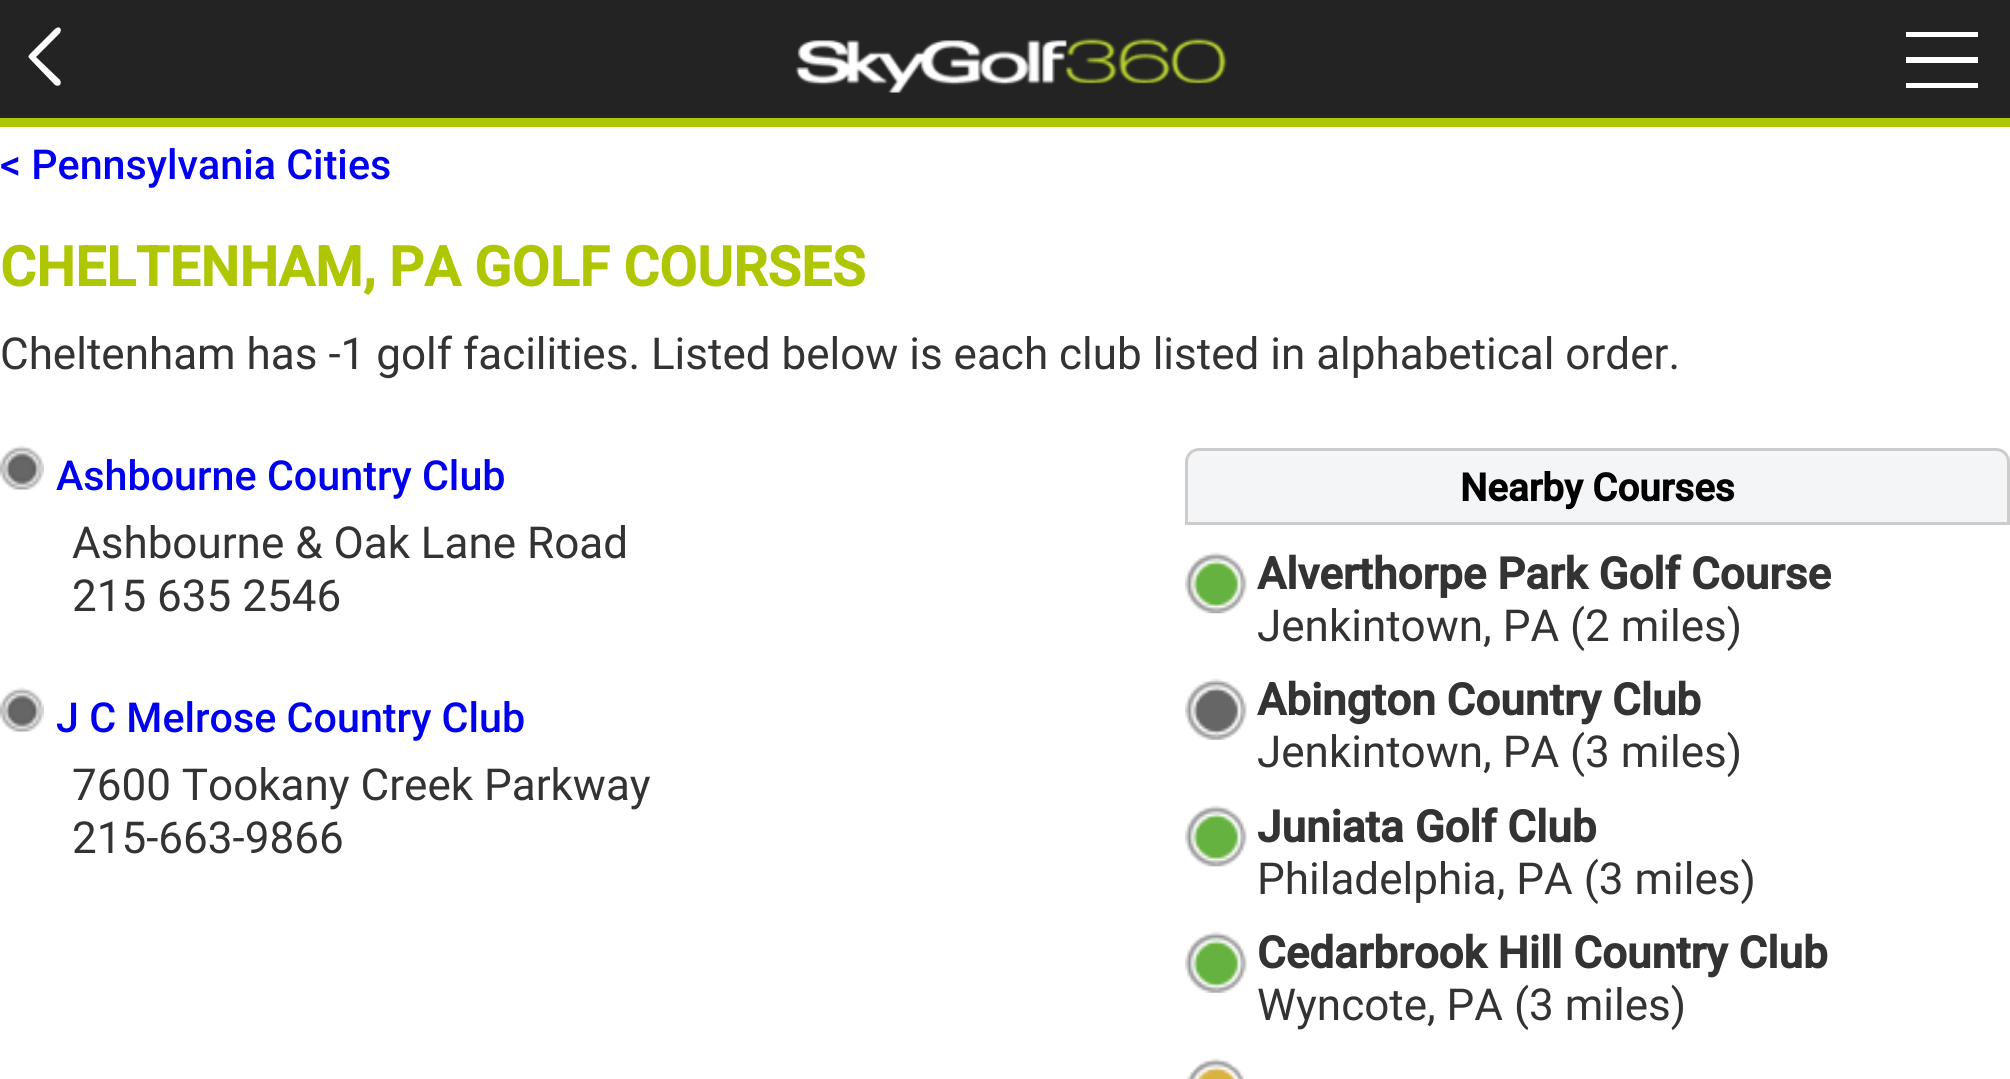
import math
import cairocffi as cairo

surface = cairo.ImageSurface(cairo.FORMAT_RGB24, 2010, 1079)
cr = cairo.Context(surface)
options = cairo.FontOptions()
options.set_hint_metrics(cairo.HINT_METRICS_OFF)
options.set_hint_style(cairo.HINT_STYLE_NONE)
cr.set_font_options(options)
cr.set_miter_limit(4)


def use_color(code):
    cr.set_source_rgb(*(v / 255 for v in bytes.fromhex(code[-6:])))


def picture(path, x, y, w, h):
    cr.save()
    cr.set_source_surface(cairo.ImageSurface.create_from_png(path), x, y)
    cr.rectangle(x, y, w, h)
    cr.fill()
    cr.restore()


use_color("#ffffff")
cr.paint()
use_color("#afc603")
cr.rectangle(0, 118, 2010, 9)
cr.fill()
use_color("#232323")
cr.rectangle(0, 0, 2010, 118)
cr.fill()
picture("img1.png", 795, 38, 432, 55)
use_color("#fefefe")
cr.new_path()
cr.move_to(30, 54)
cr.curve_to(28, 56, 28, 57, 30, 59)
cr.line_to(55, 85)
cr.curve_to(57, 86, 58, 86, 60, 85)
cr.curve_to(61, 83, 61, 82, 60, 80)
cr.line_to(36, 57)
cr.line_to(60, 33)
cr.line_to(61, 30)
cr.curve_to(59, 23, 52, 32, 51, 33)
cr.close_path()
cr.fill()
cr.new_path()
cr.move_to(1906, 32)
cr.line_to(1978, 32)
cr.line_to(1906, 32)
cr.line_to(1978, 32)
cr.line_to(1978, 37)
cr.line_to(1906, 37)
cr.close_path()
cr.move_to(1906, 57)
cr.line_to(1978, 57)
cr.line_to(1906, 57)
cr.line_to(1978, 57)
cr.line_to(1978, 63)
cr.line_to(1906, 63)
cr.close_path()
cr.move_to(1978, 83)
cr.line_to(1978, 88)
cr.line_to(1978, 83)
cr.line_to(1978, 88)
cr.line_to(1906, 88)
cr.line_to(1906, 83)
cr.close_path()
cr.fill()
cr.select_font_face("Roboto Medium")
cr.set_font_size(41.25)
use_color("#0000ee")
cr.move_to(0, 179)
cr.show_text("< Pennsylvania Cities")
cr.select_font_face("Roboto", cairo.FONT_SLANT_NORMAL, cairo.FONT_WEIGHT_BOLD)
cr.set_font_size(55)
use_color("#afc603")
cr.move_to(0, 286)
cr.show_text("CHELTENHAM, PA GOLF COURSES")
cr.select_font_face("Roboto")
cr.set_font_size(44)
use_color("#333333")
cr.move_to(0, 369)
cr.show_text("Cheltenham has -1 golf facilities. Listed below is each club listed in alphabetical order.")
picture("img2.png", 0, 445, 44, 45)
cr.select_font_face("Roboto Medium")
cr.set_font_size(41.25)
use_color("#0000ee")
cr.move_to(56, 490)
cr.show_text("Ashbourne Country Club")
use_color("#f4f5f7")
cr.new_path()
cr.move_to(1199, 449.5)
cr.line_to(1996, 449.5)
cr.curve_to(2003, 449.5, 2008.5, 455, 2008.5, 462)
cr.line_to(2008.5, 523.5)
cr.line_to(1186.5, 523.5)
cr.line_to(1186.5, 462)
cr.curve_to(1186.5, 455, 1192, 449.5, 1199, 449.5)
cr.close_path()
cr.fill_preserve()
use_color("#cccccc")
cr.set_line_width(3)
cr.stroke()
cr.select_font_face("Roboto", cairo.FONT_SLANT_NORMAL, cairo.FONT_WEIGHT_BOLD)
cr.set_font_size(38.5)
use_color("#000000")
cr.move_to(1460, 501)
cr.show_text("Nearby Courses")
picture("img3.png", 1185, 552, 62, 62)
cr.set_font_size(44)
use_color("#333333")
cr.move_to(1257, 589)
cr.show_text("Alverthorpe Park Golf Course")
cr.select_font_face("Roboto")
cr.move_to(1257, 641)
cr.show_text("Jenkintown, PA (2 miles)")
picture("img4.png", 1185, 678, 62, 62)
cr.select_font_face("Roboto", cairo.FONT_SLANT_NORMAL, cairo.FONT_WEIGHT_BOLD)
cr.move_to(1257, 715)
cr.show_text("Abington Country Club")
cr.select_font_face("Roboto")
cr.move_to(1257, 767)
cr.show_text("Jenkintown, PA (3 miles)")
picture("img3.png", 1185, 805, 62, 62)
cr.select_font_face("Roboto", cairo.FONT_SLANT_NORMAL, cairo.FONT_WEIGHT_BOLD)
cr.move_to(1257, 842)
cr.show_text("Juniata Golf Club")
cr.select_font_face("Roboto")
cr.move_to(1257, 894)
cr.show_text("Philadelphia, PA (3 miles)")
picture("img5.png", 1185, 931, 62, 62)
cr.select_font_face("Roboto", cairo.FONT_SLANT_NORMAL, cairo.FONT_WEIGHT_BOLD)
cr.move_to(1257, 968)
cr.show_text("Cedarbrook Hill Country Club")
cr.select_font_face("Roboto")
cr.move_to(1257, 1020)
cr.show_text("Wyncote, PA (3 miles)")
picture("img6.png", 1187, 1058, 57, 21)
cr.move_to(72, 558)
cr.show_text("Ashbourne & Oak Lane Road")
cr.move_to(72, 611)
cr.show_text("215 635 2546")
picture("img2.png", 0, 687, 44, 45)
cr.select_font_face("Roboto Medium")
cr.set_font_size(41.25)
use_color("#0000ee")
cr.move_to(56, 732)
cr.show_text("J C Melrose Country Club")
cr.select_font_face("Roboto")
cr.set_font_size(44)
use_color("#333333")
cr.move_to(72, 800)
cr.show_text("7600 Tookany Creek Parkway")
cr.move_to(72, 853)
cr.show_text("215-663-9866")
surface.write_to_png("result.png")
